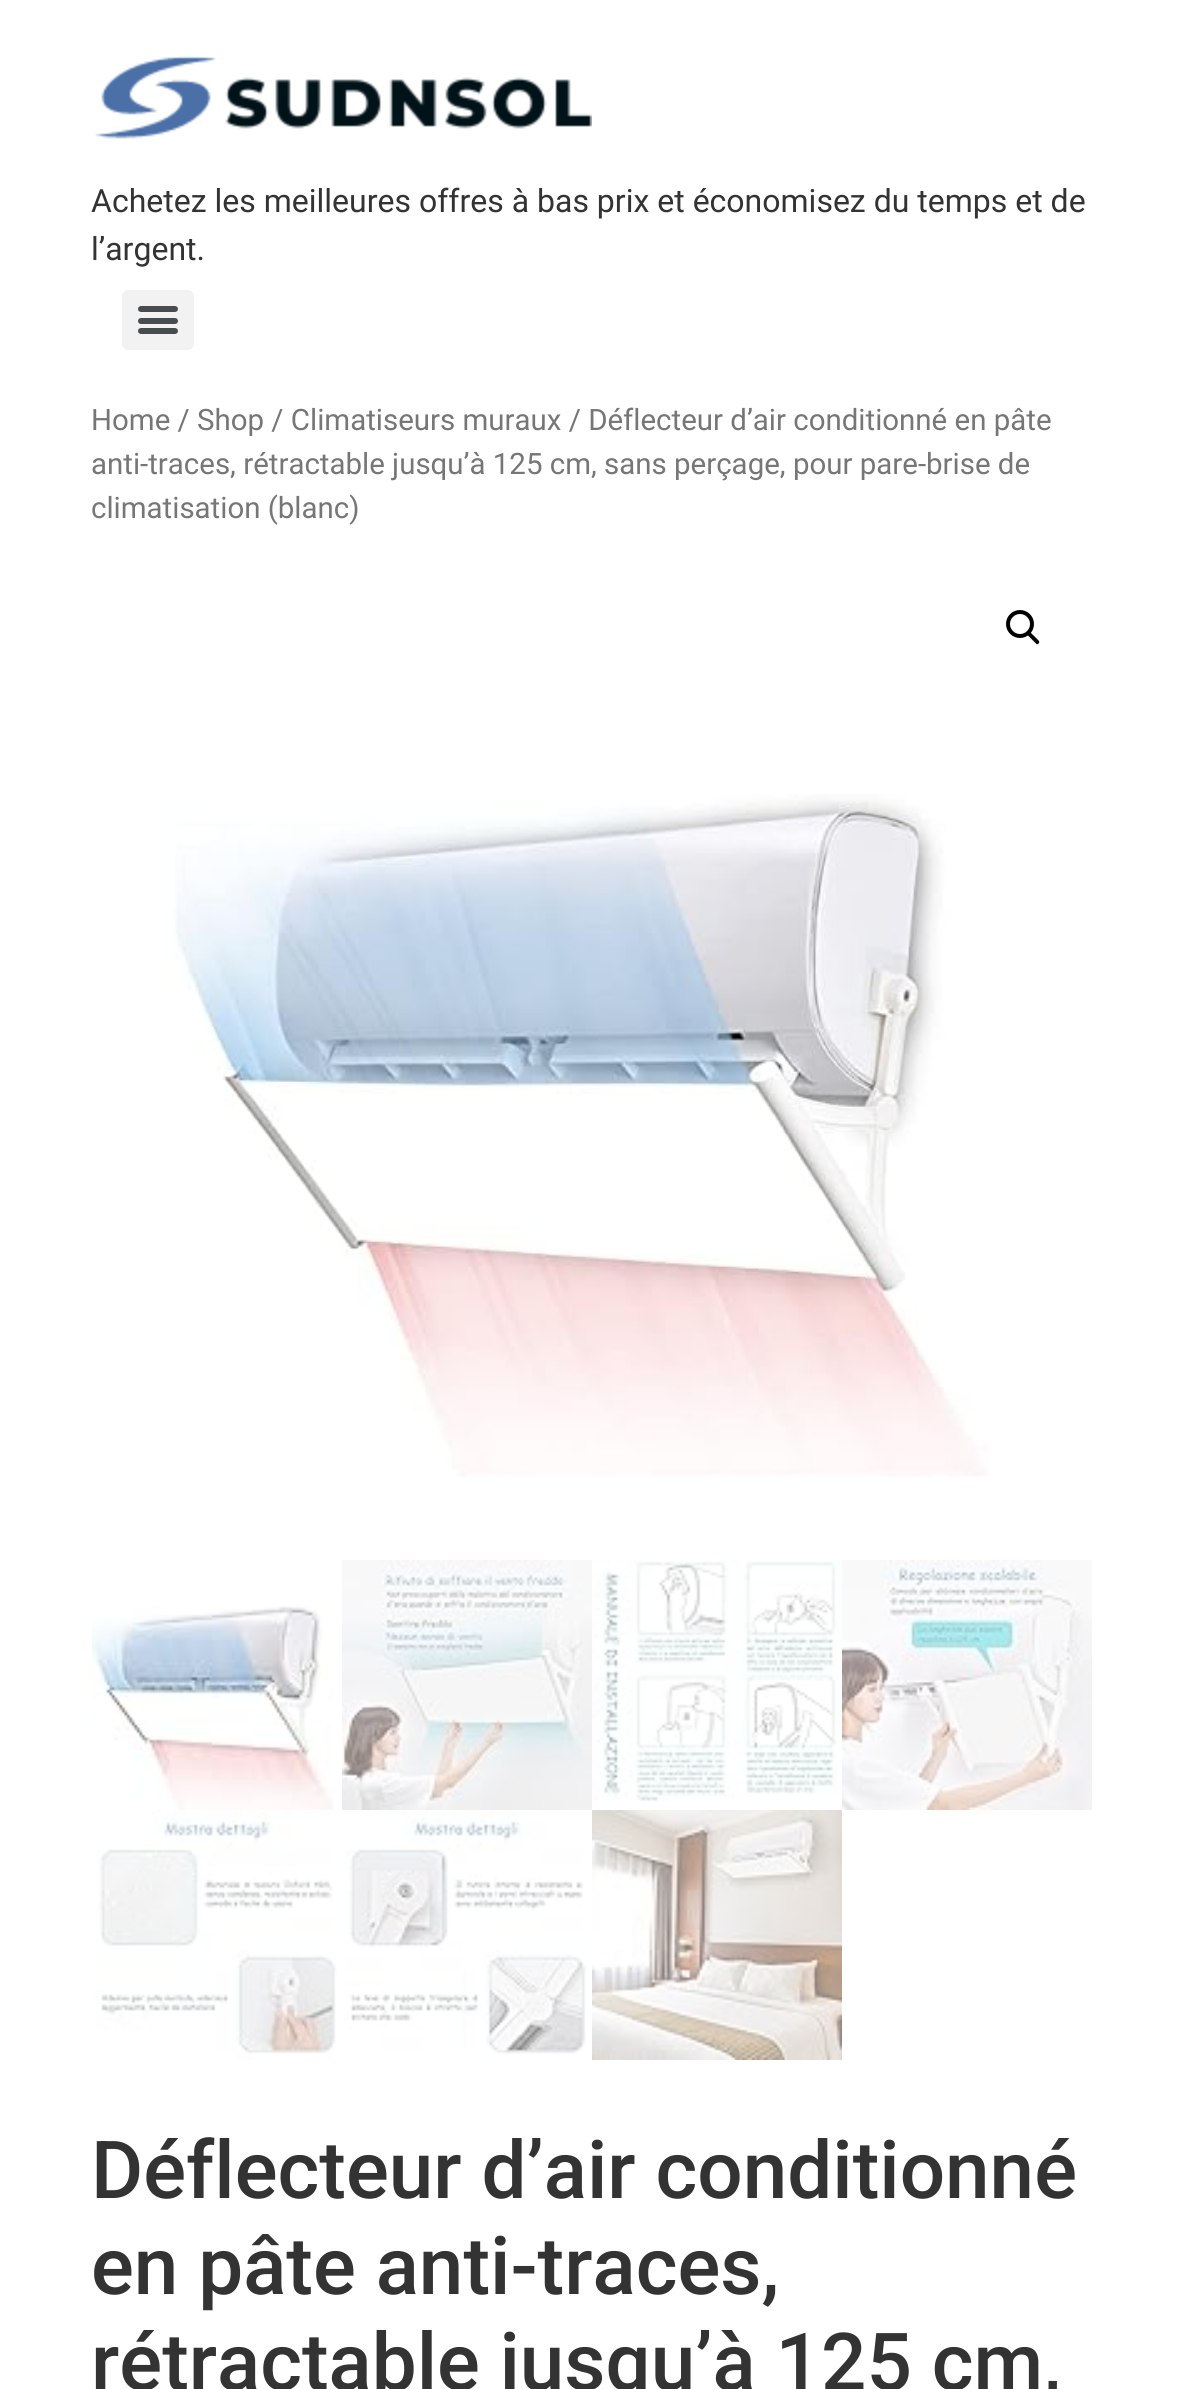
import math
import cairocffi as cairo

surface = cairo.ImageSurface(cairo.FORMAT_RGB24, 1182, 2389)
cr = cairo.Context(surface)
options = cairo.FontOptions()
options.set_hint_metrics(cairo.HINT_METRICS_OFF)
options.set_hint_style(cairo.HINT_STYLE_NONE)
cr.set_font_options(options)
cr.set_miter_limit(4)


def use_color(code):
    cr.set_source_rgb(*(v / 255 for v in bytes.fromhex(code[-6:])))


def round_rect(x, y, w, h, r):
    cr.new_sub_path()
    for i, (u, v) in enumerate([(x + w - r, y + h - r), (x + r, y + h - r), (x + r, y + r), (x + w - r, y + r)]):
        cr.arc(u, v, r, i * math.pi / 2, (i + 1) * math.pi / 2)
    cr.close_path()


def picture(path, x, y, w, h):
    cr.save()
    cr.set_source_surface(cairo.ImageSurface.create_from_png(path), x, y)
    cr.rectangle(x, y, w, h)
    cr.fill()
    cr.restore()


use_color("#ffffff")
cr.paint()
picture("img1.png", 95, 56, 497, 83)
cr.select_font_face("Roboto")
cr.set_font_size(32)
use_color("#333333")
cr.move_to(91, 212)
cr.show_text("Achetez les meilleures offres à bas prix et économisez du temps et de")
cr.move_to(91, 260)
cr.show_text("l’argent.")
use_color("#f2f2f2")
round_rect(122, 290, 72, 60, 6)
cr.fill()
use_color("#494c4f")
round_rect(138, 318, 40, 6, 3)
cr.fill()
round_rect(138, 306, 40, 6, 3)
cr.fill()
round_rect(138, 328, 40, 6, 3)
cr.fill()
cr.set_font_size(29.45)
use_color("#767676")
cr.move_to(91, 430)
cr.show_text("Home / Shop / Climatiseurs muraux / Déflecteur d’air conditionné en pâte")
cr.move_to(91, 474)
cr.show_text("anti-traces, rétractable jusqu’à 125 cm, sans perçage, pour pare-brise de")
cr.move_to(91, 518)
cr.show_text("climatisation (blanc)")
cr.new_path()
cr.arc(1020, 624, 12, 0, 2 * math.pi)
use_color("#000000")
cr.set_line_width(4)
cr.stroke()
cr.new_path()
cr.move_to(1027.5, 632)
cr.curve_to(1028, 631.5, 1029.5, 631.5, 1030, 632)
cr.line_to(1038.5, 640.5)
cr.curve_to(1039.5, 641.5, 1039.5, 643, 1038.5, 643.5)
cr.curve_to(1038, 644.5, 1036.5, 644.5, 1036, 643.5)
cr.line_to(1027.5, 635)
cr.curve_to(1026.5, 634.5, 1026.5, 633, 1027.5, 632)
cr.close_path()
cr.fill()
picture("img2.png", 173, 794, 816, 683)
picture("img3.png", 92, 1606, 242, 204)
picture("img4.png", 342, 1560, 250, 250)
picture("img5.png", 592, 1560, 250, 241)
picture("img6.png", 842, 1560, 250, 250)
picture("img7.png", 95, 1810, 242, 250)
picture("img8.png", 345, 1810, 242, 245)
picture("img9.png", 592, 1810, 250, 250)
cr.select_font_face("Roboto Medium")
cr.set_font_size(80)
use_color("#333333")
cr.move_to(91, 2198)
cr.show_text("Déflecteur d’air conditionné")
cr.move_to(91, 2294)
cr.show_text("en pâte anti-traces,")
cr.move_to(91, 2390)
cr.show_text("rétractable jusqu’à 125 cm,")
surface.write_to_png("result.png")
